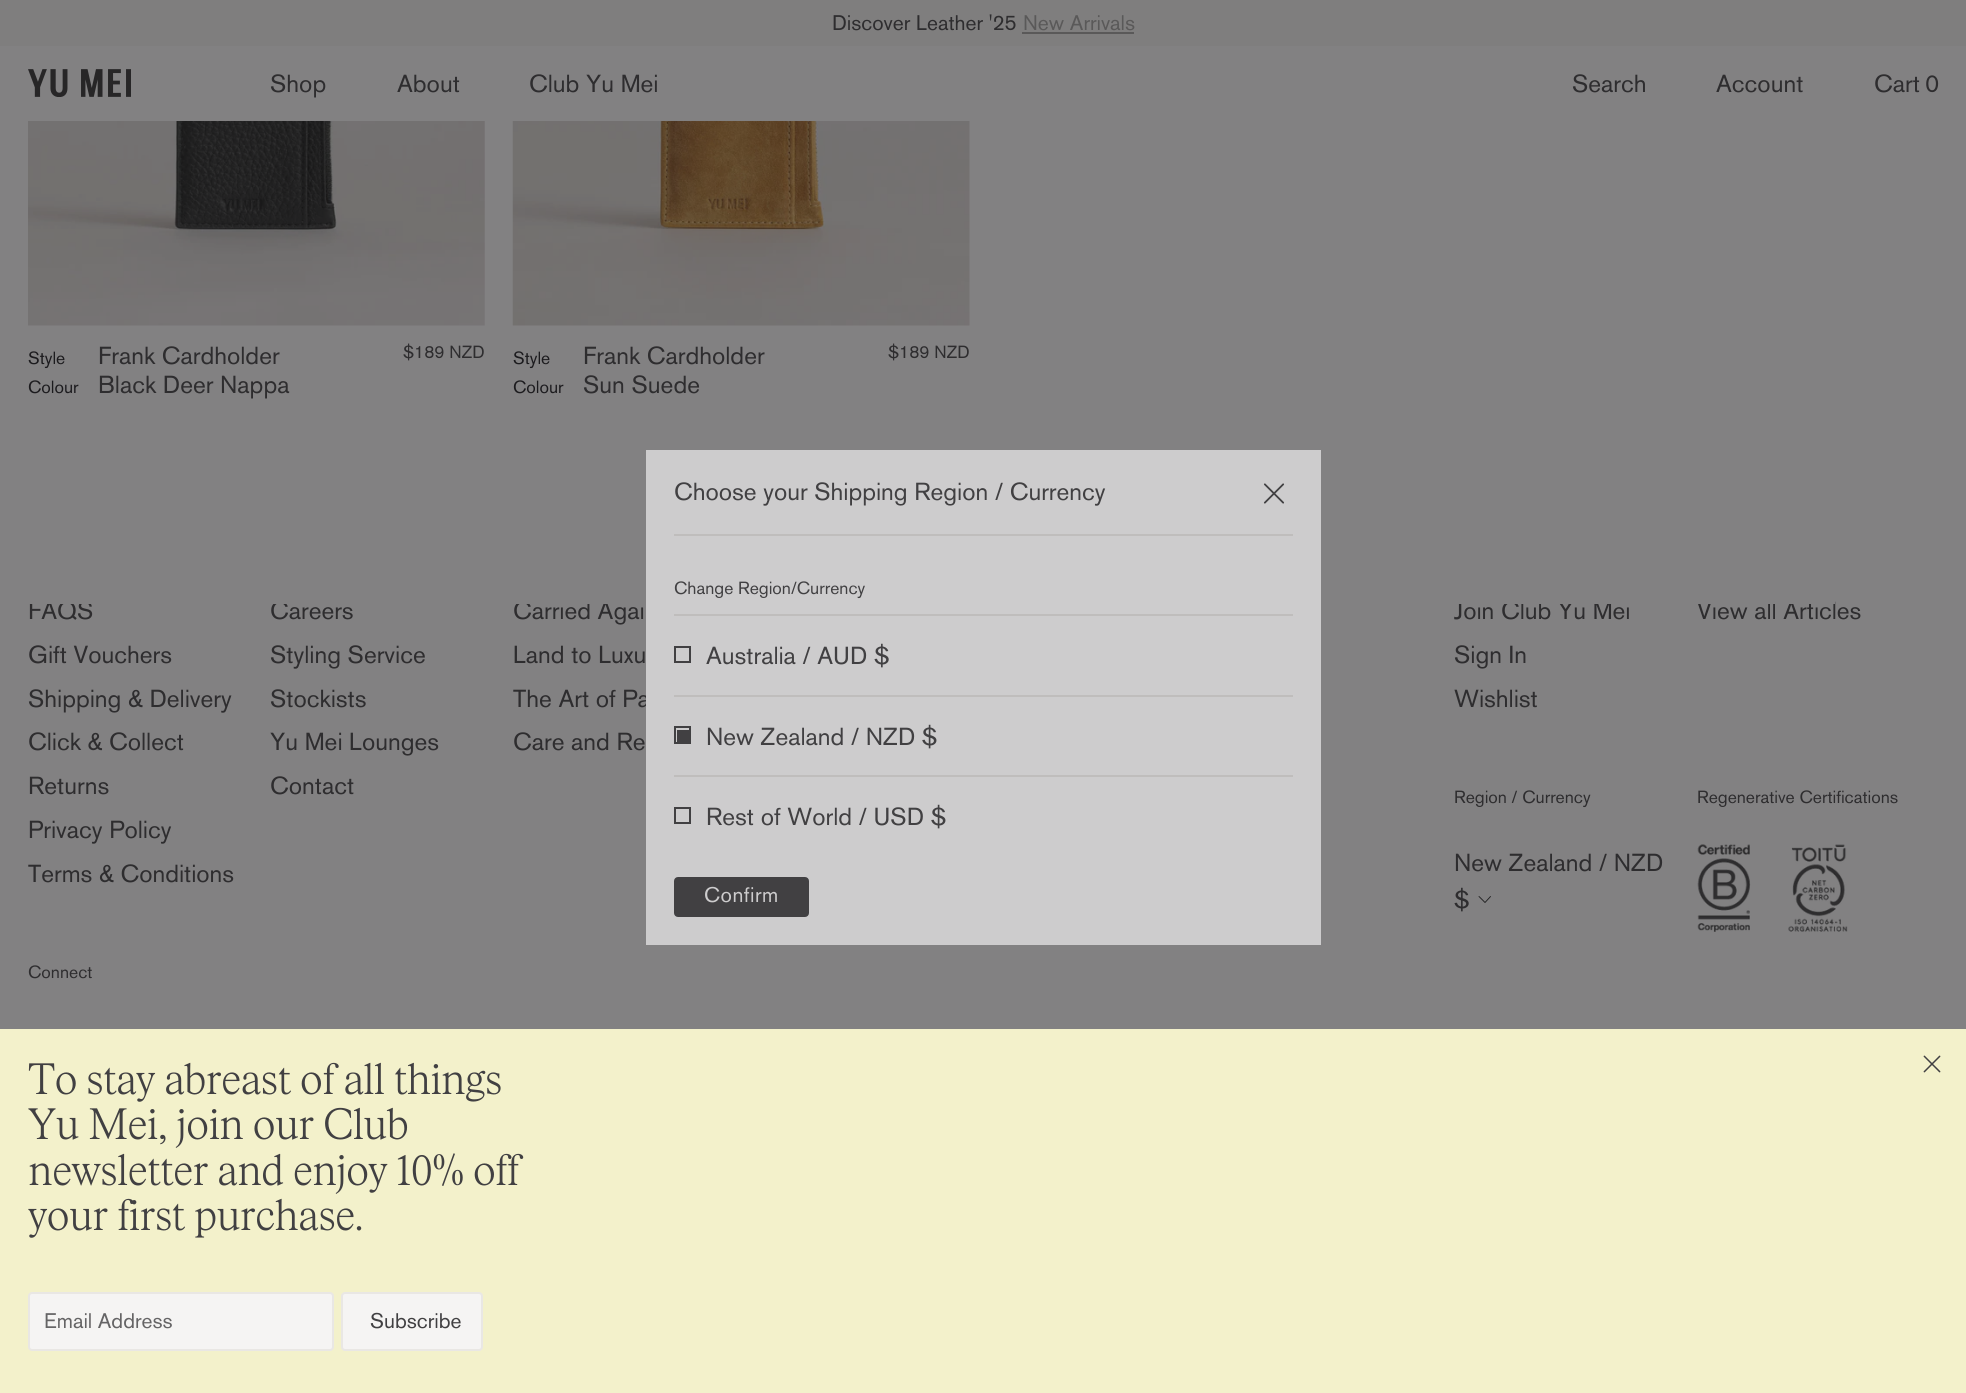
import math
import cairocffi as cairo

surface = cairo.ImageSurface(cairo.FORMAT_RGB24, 1966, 1393)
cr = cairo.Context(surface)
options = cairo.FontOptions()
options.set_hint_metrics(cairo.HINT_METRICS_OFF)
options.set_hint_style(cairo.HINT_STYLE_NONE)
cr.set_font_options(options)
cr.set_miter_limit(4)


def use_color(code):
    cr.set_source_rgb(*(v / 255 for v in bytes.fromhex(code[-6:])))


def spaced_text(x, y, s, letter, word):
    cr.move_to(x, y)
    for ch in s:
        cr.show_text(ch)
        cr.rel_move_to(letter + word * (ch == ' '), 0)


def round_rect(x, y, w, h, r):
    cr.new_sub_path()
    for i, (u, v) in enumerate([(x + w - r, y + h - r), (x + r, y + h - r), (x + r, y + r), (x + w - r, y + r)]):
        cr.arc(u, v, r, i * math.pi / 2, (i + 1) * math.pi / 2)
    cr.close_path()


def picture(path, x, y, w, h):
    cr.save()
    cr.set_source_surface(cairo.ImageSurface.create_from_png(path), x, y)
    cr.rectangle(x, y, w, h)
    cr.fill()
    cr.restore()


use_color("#828182")
cr.paint()
use_color("#7f7e7e")
cr.rectangle(0, 0, 1966, 46)
cr.fill()
cr.select_font_face("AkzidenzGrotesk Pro")
cr.set_font_size(21)
use_color("#2e2d2f")
cr.move_to(832, 30)
cr.show_text("Discover Leather '25")
use_color("#5a5959")
cr.move_to(1023, 30)
cr.show_text("New Arrivals")
cr.rectangle(1022, 32, 112, 2)
cr.fill()
picture("img1.png", 28, 69, 103, 28)
cr.set_font_size(24.5)
use_color("#2e2d2f")
cr.move_to(270, 92)
cr.show_text("Shop")
cr.move_to(397, 92)
cr.show_text("About")
cr.move_to(529, 92)
cr.show_text("Club Yu Mei")
cr.move_to(1572, 92)
cr.show_text("Search")
cr.move_to(1716, 92)
cr.show_text("Account")
cr.move_to(1874, 92)
cr.show_text("Cart")
cr.move_to(1925, 92)
cr.show_text("0")
cr.move_to(28, 619)
cr.show_text("FAQS")
cr.move_to(270, 619)
cr.show_text("Careers")
cr.move_to(513, 619)
cr.show_text("Carried Agai")
cr.move_to(1454, 619)
cr.show_text("Join Club Yu Mei")
cr.move_to(1697, 619)
cr.show_text("View all Articles")
use_color("#828182")
cr.rectangle(29, 601, 1806, 3)
cr.fill()
picture("img2.png", 28, 121, 457, 205)
cr.set_font_size(17.5)
use_color("#1c1b1e")
cr.move_to(28, 364)
cr.show_text("Style")
cr.set_font_size(24.5)
use_color("#2e2d2f")
cr.move_to(98, 364)
cr.show_text("Frank Cardholder")
cr.set_font_size(17.5)
use_color("#1c1b1e")
cr.move_to(28, 393)
cr.show_text("Colour")
cr.set_font_size(24.5)
use_color("#2e2d2f")
cr.move_to(98, 393)
cr.show_text("Black Deer Nappa")
cr.set_font_size(17.5)
cr.move_to(403, 358)
cr.show_text("$189 NZD")
picture("img3.png", 512, 121, 458, 205)
use_color("#1c1b1e")
cr.move_to(513, 364)
cr.show_text("Style")
cr.set_font_size(24.5)
use_color("#2e2d2f")
cr.move_to(583, 364)
cr.show_text("Frank Cardholder")
cr.set_font_size(17.5)
use_color("#1c1b1e")
cr.move_to(513, 393)
cr.show_text("Colour")
cr.set_font_size(24.5)
use_color("#2e2d2f")
cr.move_to(583, 393)
cr.show_text("Sun Suede")
cr.set_font_size(17.5)
cr.move_to(888, 358)
cr.show_text("$189 NZD")
cr.set_font_size(24.5)
cr.move_to(513, 707)
cr.show_text("The Art of Pa")
use_color("#cdcccd")
cr.rectangle(646, 450, 675, 495)
cr.fill()
use_color("#bfbdbc")
cr.rectangle(674, 534, 619, 2)
cr.fill()
use_color("#414042")
cr.move_to(674, 500)
cr.show_text("Choose your Shipping Region / Currency")
cr.set_font_size(17.5)
cr.move_to(674, 594)
cr.show_text("Change Region/Currency")
use_color("#bfbdbc")
cr.rectangle(674, 614, 619, 2)
cr.fill()
cr.rectangle(675, 647, 15, 15)
use_color("#414042")
cr.stroke()
cr.set_font_size(24.5)
cr.move_to(706, 664)
cr.show_text("Australia / AUD $")
use_color("#bfbdbc")
cr.rectangle(674, 695, 619, 2)
cr.fill()
cr.rectangle(675, 727, 15, 16)
use_color("#414042")
cr.stroke()
cr.move_to(706, 745)
cr.show_text("New Zealand / NZD $")
cr.rectangle(677, 730, 12, 12)
cr.fill()
use_color("#bfbdbc")
cr.rectangle(674, 775, 619, 2)
cr.fill()
cr.rectangle(675, 808, 15, 15)
use_color("#414042")
cr.stroke()
cr.move_to(706, 825)
cr.show_text("Rest of World / USD $")
round_rect(675, 878, 133, 38, 3)
cr.fill_preserve()
cr.stroke()
cr.set_font_size(21)
use_color("#cdcccd")
spaced_text(704, 902, "Confirm", 0.5, 0)
picture("img4.png", 1263, 483, 22, 21)
cr.set_font_size(24.5)
use_color("#2e2d2f")
cr.move_to(28, 663)
cr.show_text("Gift Vouchers")
cr.move_to(28, 707)
cr.show_text("Shipping & Delivery")
cr.move_to(28, 750)
cr.show_text("Click & Collect")
cr.move_to(28, 794)
cr.show_text("Returns")
cr.move_to(28, 838)
cr.show_text("Privacy Policy")
cr.move_to(28, 882)
cr.show_text("Terms & Conditions")
cr.move_to(270, 663)
cr.show_text("Styling Service")
cr.move_to(270, 707)
cr.show_text("Stockists")
cr.move_to(270, 750)
cr.show_text("Yu Mei Lounges")
cr.move_to(270, 794)
cr.show_text("Contact")
cr.move_to(513, 663)
cr.show_text("Land to Luxu")
cr.move_to(513, 750)
cr.show_text("Care and Re")
cr.set_font_size(17.5)
cr.move_to(28, 978)
cr.show_text("Connect")
cr.set_font_size(24.5)
cr.move_to(1454, 663)
cr.show_text("Sign In")
cr.move_to(1454, 707)
cr.show_text("Wishlist")
cr.set_font_size(17.5)
cr.move_to(1454, 803)
cr.show_text("Region / Currency")
cr.set_font_size(24.5)
cr.move_to(1454, 871)
cr.show_text("New Zealand / NZD")
cr.move_to(1454, 908)
cr.show_text("$")
cr.new_path()
cr.move_to(1479, 896.5)
cr.line_to(1485, 902.5)
cr.line_to(1490.5, 896.5)
use_color("#1f1f20")
cr.set_line_width(0.9)
cr.set_line_cap(cairo.LINE_CAP_ROUND)
cr.set_line_join(cairo.LINE_JOIN_ROUND)
cr.stroke()
cr.set_font_size(17.5)
use_color("#2e2d2f")
cr.move_to(1697, 803)
cr.show_text("Regenerative Certifications")
picture("img5.png", 1697, 844, 54, 88)
picture("img6.png", 1788, 844, 60, 88)
use_color("#f3f1cb")
cr.rectangle(0, 1029, 1966, 364)
cr.fill()
cr.select_font_face("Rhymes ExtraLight")
cr.set_font_size(42)
use_color("#414042")
spaced_text(28, 1094, "To stay abreast of all things", -0.85, 0)
spaced_text(28, 1139, "Yu Mei, join our Club", -0.85, 0)
spaced_text(28, 1185, "newsletter and enjoy 10% off", -0.85, 0)
spaced_text(28, 1230, "your first purchase.", -0.85, 0)
use_color("#f5f4f3")
round_rect(29, 1293, 304, 57, 3)
cr.fill_preserve()
use_color("#e9e7e4")
cr.set_line_width(2)
cr.set_line_cap(cairo.LINE_CAP_BUTT)
cr.set_line_join(cairo.LINE_JOIN_MITER)
cr.stroke()
cr.select_font_face("AkzidenzGrotesk Pro")
cr.set_font_size(21)
use_color("#656465")
cr.move_to(44, 1328)
cr.show_text("Email Address")
use_color("#f5f4f3")
round_rect(342, 1293, 140, 57, 3)
cr.fill_preserve()
use_color("#e9e7e4")
cr.stroke()
use_color("#414042")
cr.move_to(370, 1328)
cr.show_text("Subscribe")
picture("img7.png", 1923, 1055, 18, 18)
surface.write_to_png("result.png")
